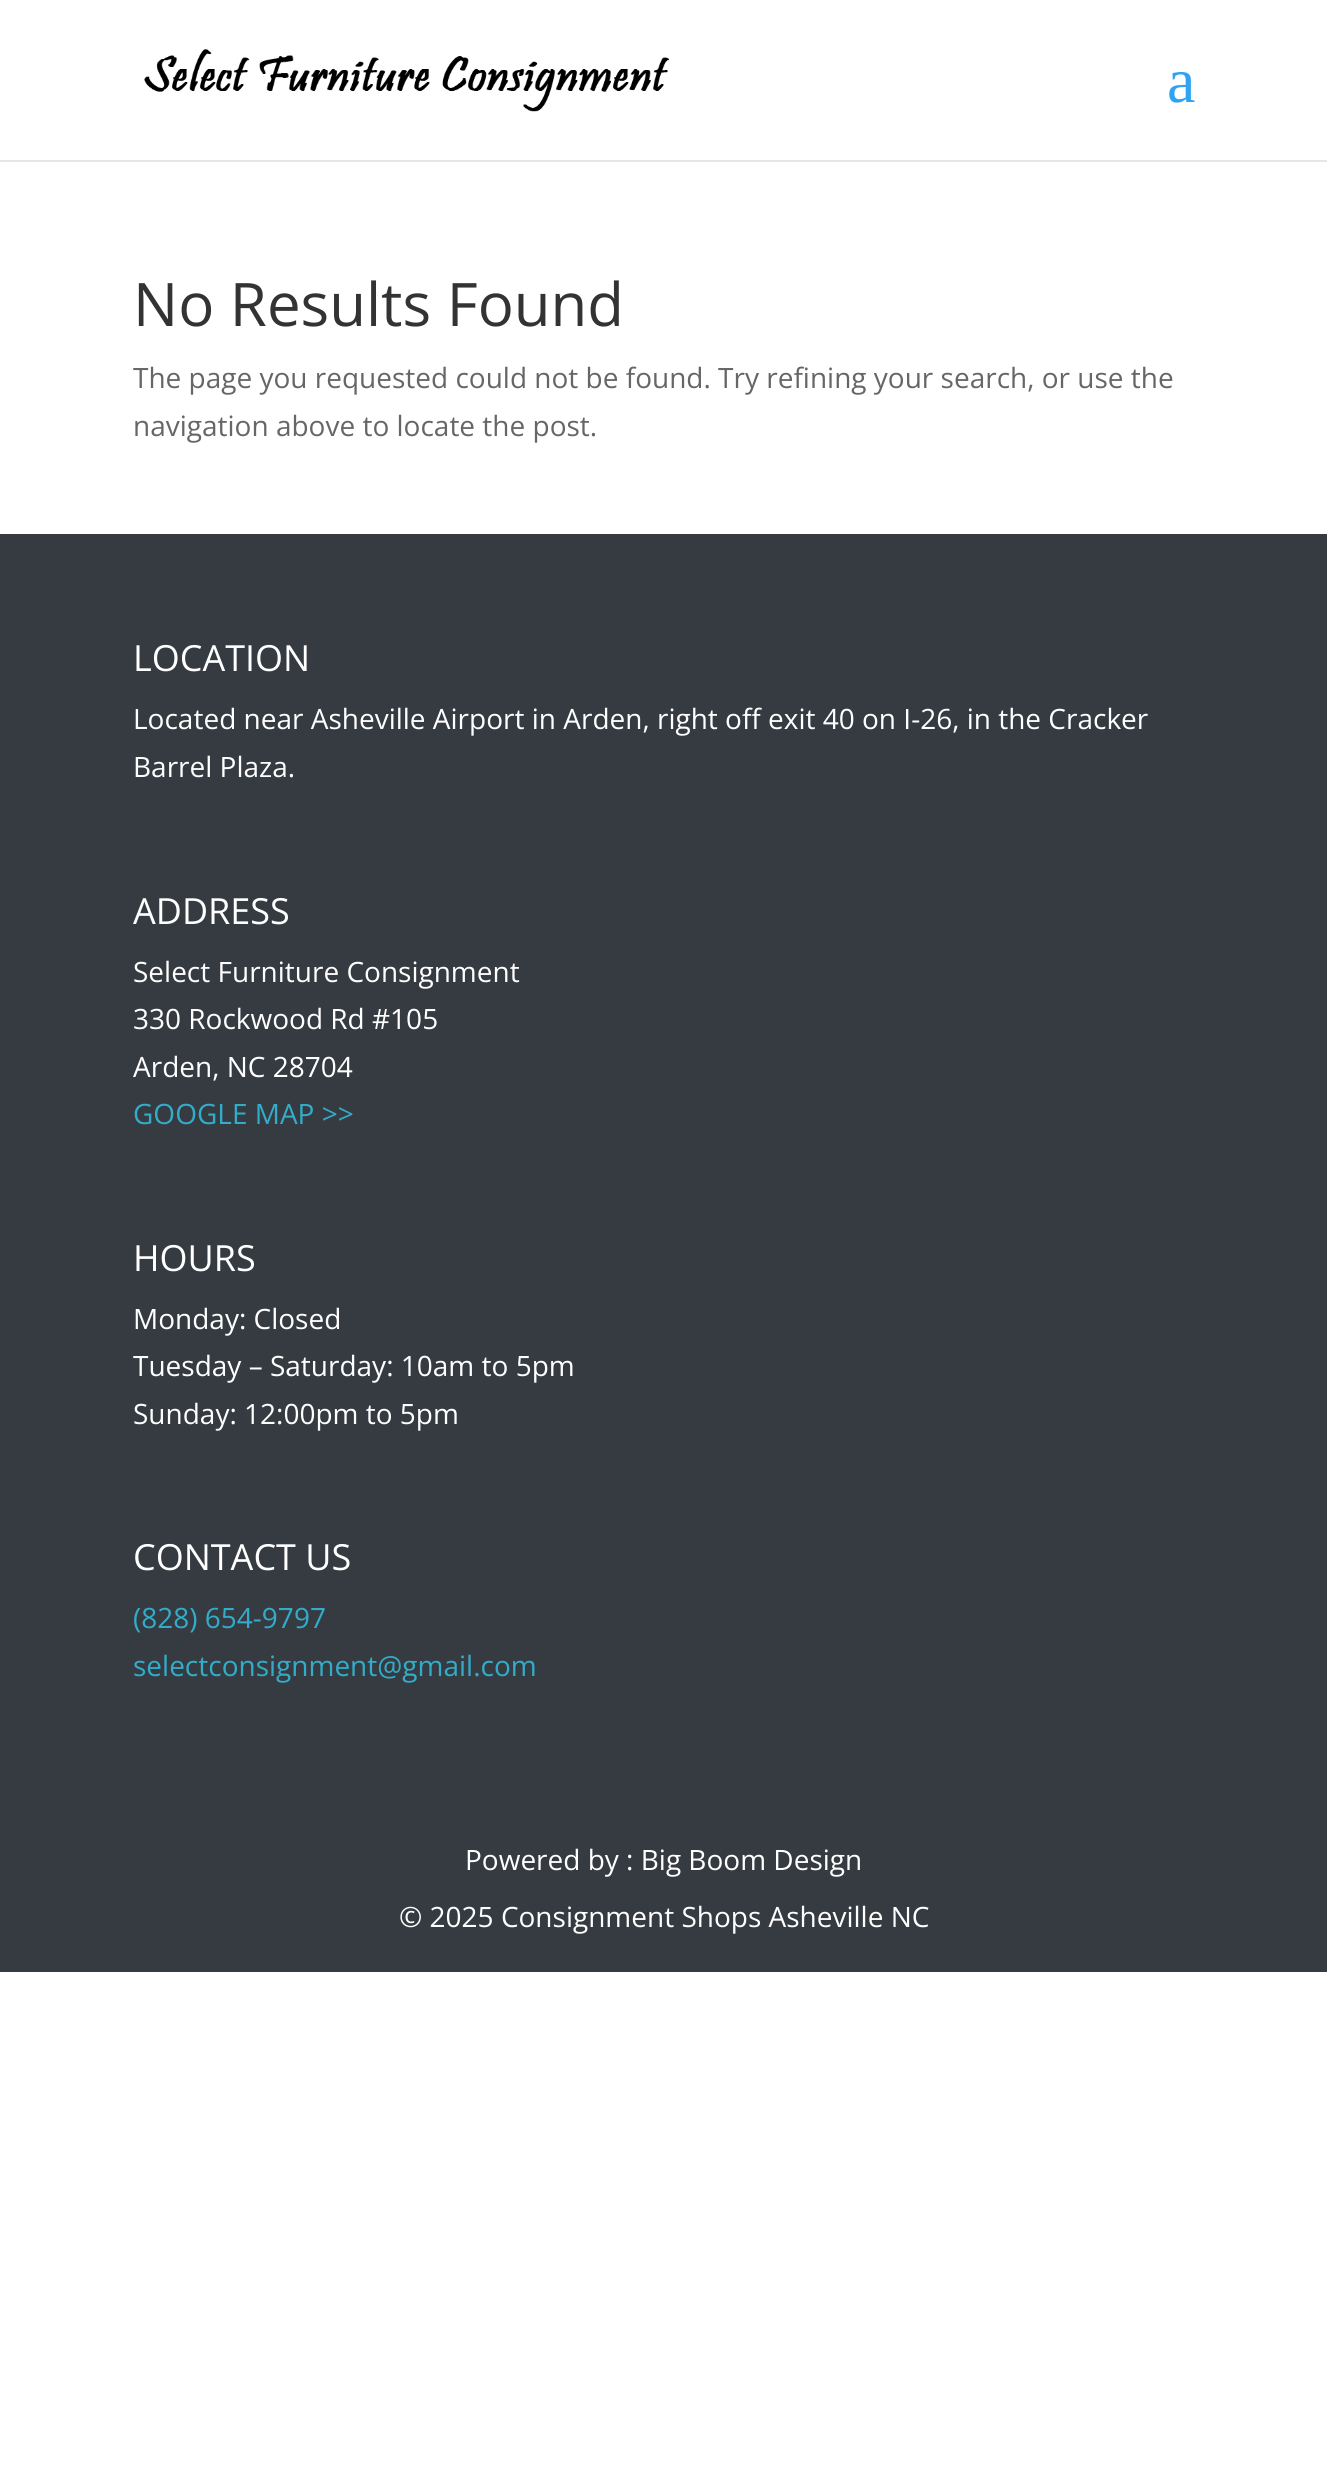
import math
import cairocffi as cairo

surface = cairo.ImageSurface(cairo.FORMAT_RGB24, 1327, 2472)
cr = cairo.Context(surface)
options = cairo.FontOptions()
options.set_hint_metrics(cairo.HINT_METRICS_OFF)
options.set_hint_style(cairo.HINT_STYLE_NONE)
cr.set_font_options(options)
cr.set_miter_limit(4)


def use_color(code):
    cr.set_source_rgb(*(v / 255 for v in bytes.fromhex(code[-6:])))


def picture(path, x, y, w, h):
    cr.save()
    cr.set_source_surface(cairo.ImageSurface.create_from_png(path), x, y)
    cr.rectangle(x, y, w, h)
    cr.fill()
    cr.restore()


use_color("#ffffff")
cr.paint()
use_color("#e6e6e6")
cr.rectangle(0, 160, 1327, 2)
cr.fill()
picture("img1.png", 144, 49, 526, 63)
cr.select_font_face("Liberation Serif")
cr.set_font_size(64)
use_color("#2ea3f2")
cr.move_to(1167, 102)
cr.show_text("a")
cr.select_font_face("Open Sans")
cr.set_font_size(60)
use_color("#333333")
cr.move_to(133, 326)
cr.show_text("No Results Found")
cr.set_font_size(28)
use_color("#666666")
cr.move_to(133, 388)
cr.show_text("The page you requested could not be found. Try refining your search, or use the")
cr.move_to(133, 436)
cr.show_text("navigation above to locate the post.")
use_color("#363b42")
cr.rectangle(0, 534, 1327, 1438)
cr.fill()
cr.set_font_size(36)
use_color("#ffffff")
cr.move_to(133, 671)
cr.show_text("LOCATION")
cr.set_font_size(28)
cr.move_to(133, 729)
cr.show_text("Located near Asheville Airport in Arden, right off exit 40 on I-26, in the Cracker")
cr.move_to(133, 777)
cr.show_text("Barrel Plaza.")
cr.set_font_size(36)
cr.move_to(133, 924)
cr.show_text("ADDRESS")
cr.set_font_size(28)
cr.move_to(133, 982)
cr.show_text("Select Furniture Consignment")
cr.move_to(133, 1029)
cr.show_text("330 Rockwood Rd #105")
cr.move_to(133, 1077)
cr.show_text("Arden, NC 28704")
use_color("#32adc9")
cr.move_to(133, 1124)
cr.show_text("GOOGLE MAP >>")
cr.set_font_size(36)
use_color("#ffffff")
cr.move_to(133, 1271)
cr.show_text("HOURS")
cr.set_font_size(28)
cr.move_to(133, 1329)
cr.show_text("Monday: Closed")
cr.move_to(133, 1376)
cr.show_text("Tuesday – Saturday: 10am to 5pm")
cr.move_to(133, 1424)
cr.show_text("Sunday: 12:00pm to 5pm")
cr.set_font_size(36)
cr.move_to(133, 1570)
cr.show_text("CONTACT US")
cr.set_font_size(28)
use_color("#32adc9")
cr.move_to(133, 1628)
cr.show_text("(828) 654-9797")
cr.move_to(133, 1676)
cr.show_text("selectconsignment@gmail.com")
use_color("#ffffff")
cr.move_to(465, 1870)
cr.show_text("Powered by : Big Boom Design")
cr.move_to(399, 1927)
cr.show_text("© 2025 Consignment Shops Asheville NC")
surface.write_to_png("result.png")
